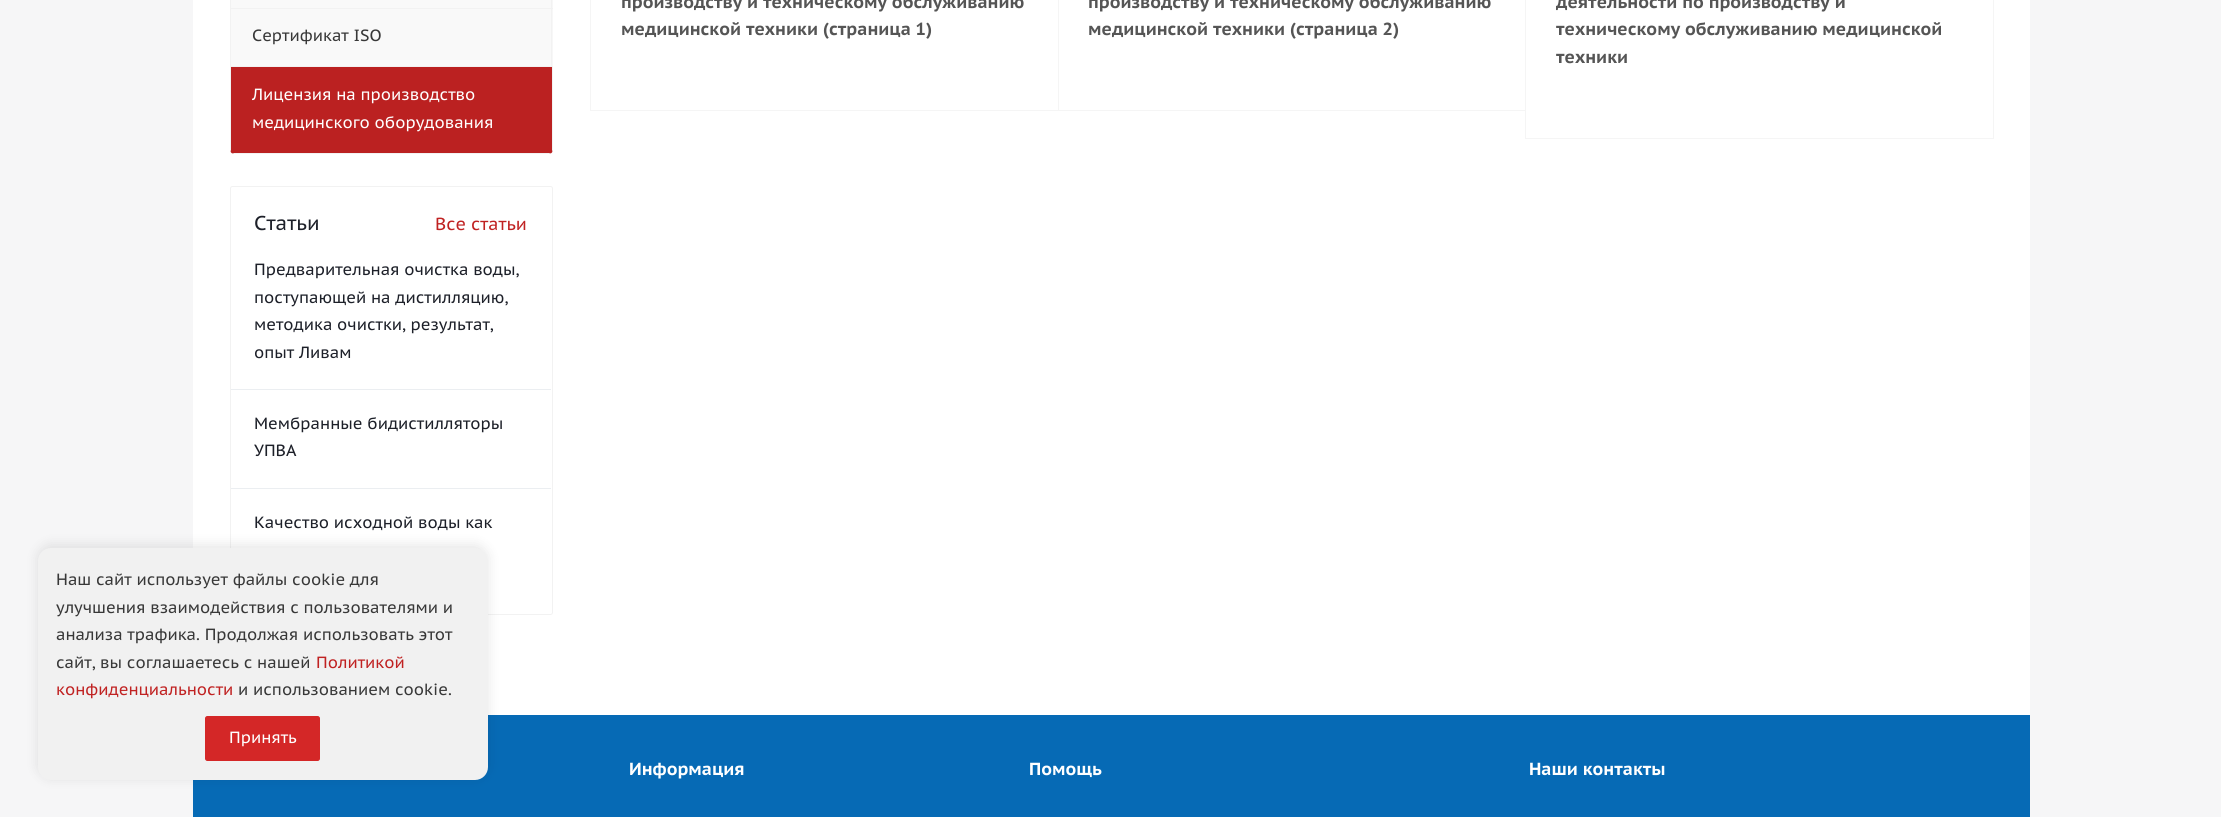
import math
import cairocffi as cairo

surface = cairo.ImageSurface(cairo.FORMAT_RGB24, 2221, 817)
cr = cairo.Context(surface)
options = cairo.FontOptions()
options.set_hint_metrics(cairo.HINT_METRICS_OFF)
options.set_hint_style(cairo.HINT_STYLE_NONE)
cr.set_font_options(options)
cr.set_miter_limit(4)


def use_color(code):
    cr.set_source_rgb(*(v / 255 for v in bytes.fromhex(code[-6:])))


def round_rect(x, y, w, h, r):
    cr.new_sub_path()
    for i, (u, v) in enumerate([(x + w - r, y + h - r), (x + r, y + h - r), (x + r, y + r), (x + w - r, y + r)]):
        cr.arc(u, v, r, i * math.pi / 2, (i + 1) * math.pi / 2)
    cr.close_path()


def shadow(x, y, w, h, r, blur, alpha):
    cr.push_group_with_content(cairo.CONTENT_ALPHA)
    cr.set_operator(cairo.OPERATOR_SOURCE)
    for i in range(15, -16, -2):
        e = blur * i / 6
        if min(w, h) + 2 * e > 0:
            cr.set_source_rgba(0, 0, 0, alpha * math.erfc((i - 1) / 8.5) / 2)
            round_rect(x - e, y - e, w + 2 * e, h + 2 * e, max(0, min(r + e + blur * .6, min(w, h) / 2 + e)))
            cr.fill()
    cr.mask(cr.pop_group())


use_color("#f6f6f7")
cr.paint()
use_color("#ffffff")
cr.rectangle(193, 0, 1837, 715)
cr.fill()
use_color("#f7f7f7")
cr.rectangle(552, 0, 1, 8)
cr.fill()
use_color("#f9f9f9")
cr.rectangle(231, 0, 320, 8)
cr.fill()
use_color("#f2f2f2")
cr.rectangle(551, 0, 1, 8)
cr.fill()
cr.rectangle(230, 0, 1, 8)
cr.fill()
use_color("#f7f7f7")
cr.rectangle(552, 9, 1, 57)
cr.fill()
use_color("#f9f9f9")
cr.rectangle(231, 9, 320, 57)
cr.fill()
use_color("#f2f2f2")
cr.rectangle(230, 8, 323, 1)
cr.fill()
cr.rectangle(551, 8, 1, 58)
cr.fill()
cr.rectangle(230, 8, 1, 58)
cr.fill()
cr.select_font_face("PT Sans Caption")
cr.set_font_size(16.25)
use_color("#383838")
cr.move_to(252, 41)
cr.show_text("Сертификат ISO")
use_color("#bb2121")
cr.new_path()
cr.move_to(230, 66)
cr.line_to(553, 66)
cr.line_to(553, 150)
cr.curve_to(553, 152, 551, 154, 549, 154)
cr.line_to(234, 154)
cr.curve_to(232, 154, 230, 152, 230, 150)
cr.close_path()
cr.fill()
use_color("#f2f2f2")
cr.set_fill_rule(cairo.FILL_RULE_EVEN_ODD)
cr.new_path()
cr.move_to(231, 67)
cr.line_to(552, 67)
cr.line_to(552, 153)
cr.line_to(553, 150)
cr.line_to(553, 66)
cr.line_to(230, 66)
cr.line_to(230, 150)
cr.line_to(231, 153)
cr.close_path()
cr.move_to(549, 154)
cr.line_to(552, 153)
cr.line_to(231, 153)
cr.line_to(234, 154)
cr.close_path()
cr.fill()
use_color("#ffffff")
cr.move_to(252, 100)
cr.show_text("Лицензия на производство")
cr.move_to(252, 128)
cr.show_text("медицинского оборудования")
round_rect(230.5, 186.5, 322, 428, 2)
use_color("#f2f2f2")
cr.set_line_width(1)
cr.stroke()
cr.set_font_size(20)
use_color("#1d2029")
cr.move_to(254, 230)
cr.show_text("Статьи")
cr.set_font_size(17.5)
use_color("#c02222")
cr.move_to(435, 230)
cr.show_text("Все статьи")
use_color("#ebeef1")
cr.rectangle(231, 389, 320, 1)
cr.fill()
cr.set_font_size(16.25)
use_color("#1d2029")
cr.move_to(254, 275)
cr.show_text("Предварительная очистка воды,")
cr.move_to(254, 303)
cr.show_text("поступающей на дистилляцию,")
cr.move_to(254, 330)
cr.show_text("методика очистки, результат,")
cr.move_to(254, 358)
cr.show_text("опыт Ливам")
use_color("#ebeef1")
cr.rectangle(231, 488, 320, 1)
cr.fill()
use_color("#1d2029")
cr.move_to(254, 429)
cr.show_text("Мембранные бидистилляторы")
cr.move_to(254, 456)
cr.show_text("УПВА")
cr.move_to(254, 528)
cr.show_text("Качество исходной воды как")
cr.rectangle(590.5, -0.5, 468, 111)
use_color("#f5f5f5")
cr.stroke()
cr.select_font_face("PT Sans Caption", cairo.FONT_SLANT_NORMAL, cairo.FONT_WEIGHT_BOLD)
cr.set_font_size(17.5)
use_color("#555555")
cr.move_to(621, 8)
cr.show_text("производству и техническому обслуживанию")
cr.move_to(621, 35)
cr.show_text("медицинской техники (страница 1)")
cr.rectangle(1058.5, -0.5, 467, 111)
use_color("#f5f5f5")
cr.stroke()
use_color("#555555")
cr.move_to(1088, 8)
cr.show_text("производству и техническому обслуживанию")
cr.move_to(1088, 35)
cr.show_text("медицинской техники (страница 2)")
cr.rectangle(1525.5, -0.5, 468, 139)
use_color("#f5f5f5")
cr.stroke()
use_color("#555555")
cr.move_to(1556, 8)
cr.show_text("деятельности по производству и")
cr.move_to(1556, 35)
cr.show_text("техническому обслуживанию медицинской")
cr.move_to(1556, 63)
cr.show_text("техники")
use_color("#066ab5")
cr.rectangle(193, 715, 1837, 102)
cr.fill()
use_color("#000000")
shadow(38, 545, 450, 233, 13, 6, 0.1)
use_color("#f1f1f1")
round_rect(38, 548, 450, 232, 13)
cr.fill()
cr.select_font_face("PT Sans Caption")
cr.set_font_size(16.25)
use_color("#383838")
cr.move_to(56, 585)
cr.show_text("Наш сайт использует файлы cookie для")
cr.move_to(56, 613)
cr.show_text("улучшения взаимодействия с пользователями и")
cr.move_to(56, 640)
cr.show_text("анализа трафика. Продолжая использовать этот")
cr.move_to(56, 668)
cr.show_text("сайт, вы соглашаетесь с нашей")
use_color("#c02222")
cr.move_to(316, 668)
cr.show_text("Политикой")
cr.move_to(56, 695)
cr.show_text("конфиденциальности")
use_color("#383838")
cr.move_to(238, 695)
cr.show_text("и использованием cookie.")
use_color("#d42727")
round_rect(205.5, 716.5, 114, 44, 2)
cr.fill_preserve()
cr.stroke()
use_color("#ffffff")
cr.move_to(229, 743)
cr.show_text("Принять")
cr.select_font_face("PT Sans Caption", cairo.FONT_SLANT_NORMAL, cairo.FONT_WEIGHT_BOLD)
cr.set_font_size(17.5)
cr.move_to(629, 775)
cr.show_text("Информация")
cr.move_to(1029, 775)
cr.show_text("Помощь")
cr.move_to(1529, 775)
cr.show_text("Наши контакты")
surface.write_to_png("result.png")
